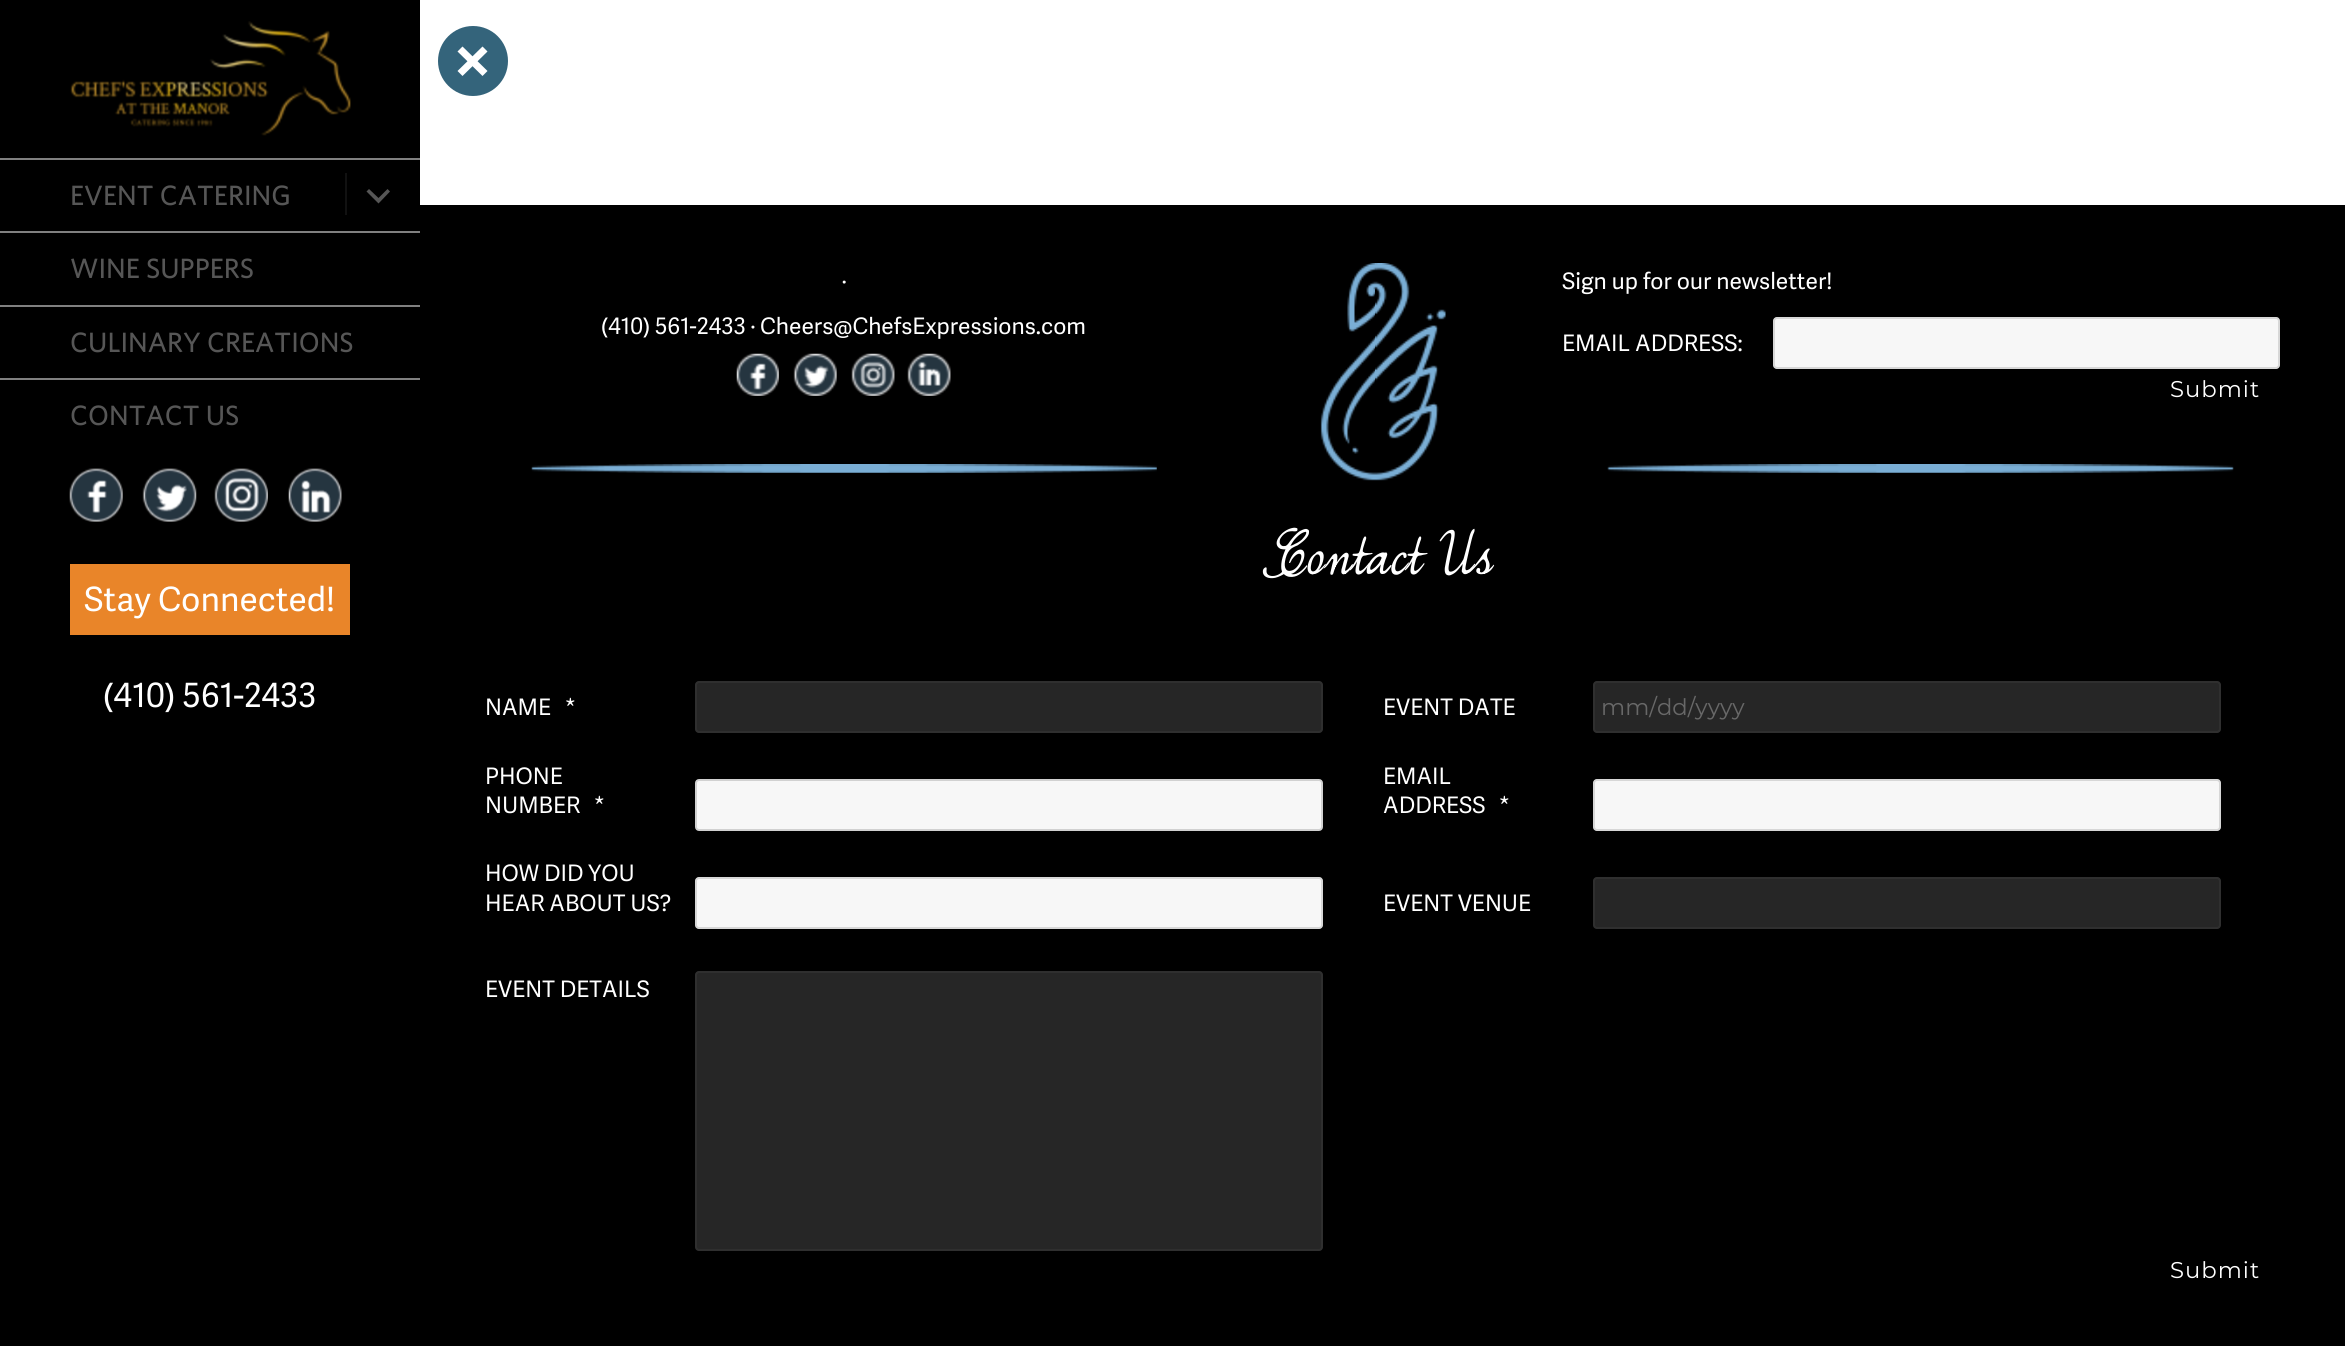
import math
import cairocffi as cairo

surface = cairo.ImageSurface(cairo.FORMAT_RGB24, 2345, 1346)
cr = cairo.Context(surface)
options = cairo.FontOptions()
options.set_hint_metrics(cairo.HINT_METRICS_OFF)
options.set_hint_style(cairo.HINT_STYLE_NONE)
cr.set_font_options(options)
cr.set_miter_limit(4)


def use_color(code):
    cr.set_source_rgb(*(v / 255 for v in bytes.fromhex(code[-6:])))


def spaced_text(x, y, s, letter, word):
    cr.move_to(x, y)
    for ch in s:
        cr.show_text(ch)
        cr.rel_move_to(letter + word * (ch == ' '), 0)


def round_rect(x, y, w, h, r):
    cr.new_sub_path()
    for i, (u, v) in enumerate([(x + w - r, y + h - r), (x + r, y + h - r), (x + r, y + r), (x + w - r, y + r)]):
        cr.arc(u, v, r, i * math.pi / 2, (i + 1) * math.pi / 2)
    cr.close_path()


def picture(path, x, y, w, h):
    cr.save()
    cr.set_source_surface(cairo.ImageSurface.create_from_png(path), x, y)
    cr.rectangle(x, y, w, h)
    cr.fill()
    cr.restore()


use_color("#ffffff")
cr.paint()
use_color("#34647b")
cr.arc(473, 61, 35, 0, 2 * math.pi)
cr.fill()
use_color("#ffffff")
cr.new_path()
cr.move_to(457.5, 71)
cr.line_to(482.5, 46.5)
cr.line_to(487.5, 51.5)
cr.line_to(462.5, 76)
cr.close_path()
cr.fill()
cr.new_path()
cr.move_to(462.5, 46.5)
cr.line_to(487.5, 71)
cr.line_to(482.5, 76)
cr.line_to(457.5, 51.5)
cr.close_path()
cr.fill()
use_color("#000000")
cr.rectangle(0, 0, 420, 1346)
cr.fill()
picture("img1.png", 70, 21, 281, 115)
use_color("#808080")
cr.rectangle(0, 158, 420, 2)
cr.fill()
cr.select_font_face("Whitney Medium")
cr.set_font_size(28)
use_color("#565656")
cr.move_to(70, 205)
cr.show_text("EVENT CATERING")
use_color("#111111")
cr.rectangle(345, 173, 2, 42)
cr.fill()
use_color("#565656")
cr.new_path()
cr.move_to(387.5, 189)
cr.line_to(390, 191.5)
cr.line_to(378.5, 203.5)
cr.line_to(366.5, 191.5)
cr.line_to(369, 189)
cr.line_to(378.5, 198)
cr.close_path()
cr.fill()
use_color("#808080")
cr.rectangle(0, 231, 420, 2)
cr.fill()
use_color("#565656")
cr.move_to(70, 278)
cr.show_text("WINE SUPPERS")
use_color("#808080")
cr.rectangle(0, 305, 420, 2)
cr.fill()
use_color("#565656")
cr.move_to(70, 352)
cr.show_text("CULINARY CREATIONS")
use_color("#808080")
cr.rectangle(0, 378, 420, 2)
cr.fill()
use_color("#565656")
cr.move_to(70, 425)
cr.show_text("CONTACT US")
picture("img2.png", 69, 468, 54, 54)
picture("img3.png", 142, 468, 55, 54)
picture("img4.png", 214, 468, 54, 54)
picture("img5.png", 288, 468, 54, 54)
use_color("#e98529")
cr.rectangle(70, 564, 280, 71)
cr.fill()
cr.select_font_face("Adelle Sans")
cr.set_font_size(33.5)
use_color("#ffffff")
cr.move_to(84, 611)
cr.show_text("Stay Connected!")
cr.move_to(103, 707)
cr.show_text("(410) 561-2433")
use_color("#000000")
cr.rectangle(420, 205, 1925, 1141)
cr.fill()
picture("img6.png", 1320, 263, 126, 218)
cr.set_font_size(22.75)
use_color("#ffffff")
cr.move_to(842, 289)
cr.show_text("·")
cr.move_to(601, 334)
cr.show_text("(410) 561-2433 · Cheers@ChefsExpressions.com")
picture("img7.png", 736, 353, 43, 43)
picture("img8.png", 793, 353, 44, 43)
picture("img9.png", 851, 353, 44, 43)
picture("img10.png", 907, 353, 44, 43)
picture("img11.png", 531, 464, 626, 9)
cr.move_to(1562, 289)
cr.show_text("Sign up for our newsletter!")
cr.move_to(1562, 351)
cr.show_text("EMAIL ADDRESS:")
use_color("#f7f7f7")
round_rect(1773, 317, 507, 52, 4)
cr.fill()
round_rect(1774, 318, 505, 50, 3)
cr.set_source_rgba(0.337, 0.337, 0.337, 0.2)
cr.stroke()
cr.select_font_face("Montserrat")
use_color("#ffffff")
spaced_text(2170, 397, "Submit", 1, 0)
picture("img12.png", 1607, 464, 627, 9)
cr.select_font_face("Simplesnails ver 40")
cr.set_font_size(63.5)
spaced_text(1268, 574, "Contact Us", 1.75, 0)
cr.select_font_face("Adelle Sans")
cr.set_font_size(22.75)
cr.move_to(485, 715)
cr.show_text("NAME")
cr.move_to(565, 715)
cr.show_text("*")
use_color("#262626")
round_rect(695, 681, 628, 52, 4)
cr.fill()
round_rect(696, 682, 626, 50, 3)
cr.set_source_rgba(0.337, 0.337, 0.337, 0.2)
cr.stroke()
use_color("#ffffff")
cr.move_to(1383, 715)
cr.show_text("EVENT DATE")
use_color("#262626")
round_rect(1593, 681, 628, 52, 4)
cr.fill()
round_rect(1594, 682, 626, 50, 3)
cr.set_source_rgba(0.337, 0.337, 0.337, 0.2)
cr.stroke()
cr.select_font_face("Montserrat")
use_color("#686868")
cr.move_to(1601, 715)
cr.show_text("mm/dd/yyyy")
cr.select_font_face("Adelle Sans")
use_color("#ffffff")
cr.move_to(485, 784)
cr.show_text("PHONE")
cr.move_to(485, 813)
cr.show_text("NUMBER")
cr.move_to(594, 813)
cr.show_text("*")
use_color("#f7f7f7")
round_rect(696, 780, 626, 50, 3)
cr.fill_preserve()
use_color("#d1d1d1")
cr.stroke()
use_color("#ffffff")
cr.move_to(1383, 784)
cr.show_text("EMAIL")
cr.move_to(1383, 813)
cr.show_text("ADDRESS")
cr.move_to(1499, 813)
cr.show_text("*")
use_color("#f7f7f7")
round_rect(1593, 779, 628, 52, 4)
cr.fill()
round_rect(1594, 780, 626, 50, 3)
cr.set_source_rgba(0.337, 0.337, 0.337, 0.2)
cr.stroke()
use_color("#ffffff")
cr.move_to(485, 881)
cr.show_text("HOW DID YOU")
cr.move_to(485, 911)
cr.show_text("HEAR ABOUT US?")
use_color("#f7f7f7")
round_rect(695, 877, 628, 52, 4)
cr.fill()
round_rect(696, 878, 626, 50, 3)
cr.set_source_rgba(0.337, 0.337, 0.337, 0.2)
cr.stroke()
use_color("#ffffff")
cr.move_to(1383, 911)
cr.show_text("EVENT VENUE")
use_color("#262626")
round_rect(1593, 877, 628, 52, 4)
cr.fill()
round_rect(1594, 878, 626, 50, 3)
cr.set_source_rgba(0.337, 0.337, 0.337, 0.2)
cr.stroke()
use_color("#ffffff")
cr.move_to(485, 997)
cr.show_text("EVENT DETAILS")
use_color("#262626")
round_rect(695, 971, 628, 280, 4)
cr.fill()
round_rect(696, 972, 626, 278, 3)
cr.set_source_rgba(0.337, 0.337, 0.337, 0.2)
cr.stroke()
cr.select_font_face("Montserrat")
use_color("#ffffff")
spaced_text(2170, 1278, "Submit", 1, 0)
surface.write_to_png("result.png")
